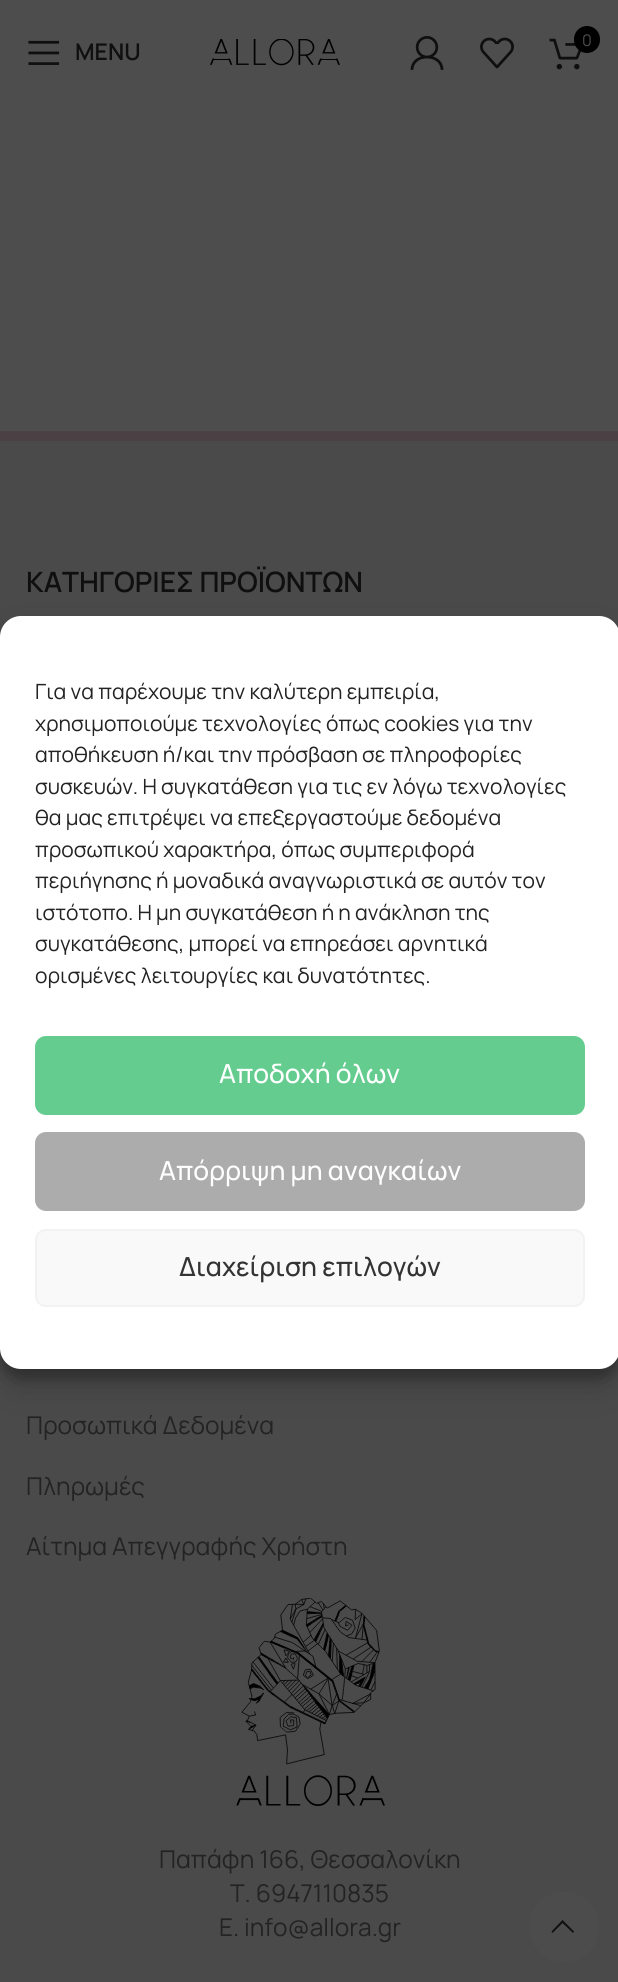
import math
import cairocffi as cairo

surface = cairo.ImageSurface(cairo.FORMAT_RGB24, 618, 1982)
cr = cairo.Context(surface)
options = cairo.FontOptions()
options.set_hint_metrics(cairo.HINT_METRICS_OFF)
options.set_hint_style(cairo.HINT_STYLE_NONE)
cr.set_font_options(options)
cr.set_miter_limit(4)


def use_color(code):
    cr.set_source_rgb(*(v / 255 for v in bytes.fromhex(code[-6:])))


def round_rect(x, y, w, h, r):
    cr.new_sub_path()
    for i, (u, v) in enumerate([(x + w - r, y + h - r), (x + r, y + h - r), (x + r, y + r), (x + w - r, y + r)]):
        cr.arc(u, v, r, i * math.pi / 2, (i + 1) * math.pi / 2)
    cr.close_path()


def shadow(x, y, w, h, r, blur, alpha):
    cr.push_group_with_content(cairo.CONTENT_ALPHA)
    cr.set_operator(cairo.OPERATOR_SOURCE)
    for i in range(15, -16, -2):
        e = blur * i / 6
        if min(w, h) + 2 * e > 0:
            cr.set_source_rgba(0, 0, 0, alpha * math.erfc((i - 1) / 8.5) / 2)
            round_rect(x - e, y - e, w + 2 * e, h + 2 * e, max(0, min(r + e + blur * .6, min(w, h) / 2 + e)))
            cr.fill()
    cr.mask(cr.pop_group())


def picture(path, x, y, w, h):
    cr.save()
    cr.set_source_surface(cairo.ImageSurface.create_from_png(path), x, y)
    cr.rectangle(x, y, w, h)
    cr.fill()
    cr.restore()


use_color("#4d4d4d")
cr.paint()
picture("img1.png", 28, 40, 32, 25)
cr.select_font_face("Manrope SemiBold")
cr.set_font_size(23)
use_color("#0f0f0f")
cr.move_to(75, 60)
cr.show_text("MENU")
picture("img2.png", 210, 39, 130, 27)
picture("img3.png", 410, 36, 34, 34)
picture("img4.png", 480, 37, 34, 32)
picture("img5.png", 549, 38, 33, 32)
use_color("#000000")
round_rect(574, 26, 26, 27, 13)
cr.fill()
cr.select_font_face("Manrope")
cr.set_font_size(16)
use_color("#4d4d4d")
cr.move_to(582, 46)
cr.show_text("0")
use_color("#4a4a4a")
cr.rectangle(0, 441, 618, 1541)
cr.fill()
use_color("#4b4043")
cr.rectangle(0, 431, 618, 10)
cr.fill()
cr.select_font_face("Manrope SemiBold")
cr.set_font_size(28)
use_color("#0f0f0f")
cr.move_to(26, 592)
cr.show_text("ΚΑΤΗΓΟΡΙΕΣ ΠΡΟΪΟΝΤΩΝ")
cr.select_font_face("Manrope")
cr.set_font_size(24.5)
use_color("#232323")
cr.move_to(26, 1434)
cr.show_text("Προσωπικά Δεδομένα")
cr.move_to(26, 1495)
cr.show_text("Πληρωμές")
cr.move_to(26, 1555)
cr.show_text("Αίτημα Απεγγραφής Χρήστη")
picture("img6.png", 236, 1598, 149, 208)
cr.move_to(159, 1868)
cr.show_text("Παπάφη 166, Θεσσαλονίκη")
cr.move_to(230, 1902)
cr.show_text("Τ. 6947110835")
cr.move_to(219, 1936)
cr.show_text("E. info@allora.gr")
use_color("#000000")
shadow(0, 627, 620, 752, 21, 5, 0.23)
shadow(0, 634, 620, 752, 21, 17.5, 0.19)
use_color("#ffffff")
round_rect(0, 616, 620, 753, 21)
cr.fill()
cr.set_font_size(21)
use_color("#232323")
cr.move_to(35, 699)
cr.show_text("Για να παρέχουμε την καλύτερη εμπειρία,")
cr.move_to(35, 731)
cr.show_text("χρησιμοποιούμε τεχνολογίες όπως cookies για την")
cr.move_to(35, 762)
cr.show_text("αποθήκευση ή/και την πρόσβαση σε πληροφορίες")
cr.move_to(35, 794)
cr.show_text("συσκευών. Η συγκατάθεση για τις εν λόγω τεχνολογίες")
cr.move_to(35, 825)
cr.show_text("θα μας επιτρέψει να επεξεργαστούμε δεδομένα")
cr.move_to(35, 857)
cr.show_text("προσωπικού χαρακτήρα, όπως συμπεριφορά")
cr.move_to(35, 888)
cr.show_text("περιήγησης ή μοναδικά αναγνωριστικά σε αυτόν τον")
cr.move_to(35, 920)
cr.show_text("ιστότοπο. Η μη συγκατάθεση ή η ανάκληση της")
cr.move_to(35, 951)
cr.show_text("συγκατάθεσης, μπορεί να επηρεάσει αρνητικά")
cr.move_to(35, 983)
cr.show_text("ορισμένες λειτουργίες και δυνατότητες.")
use_color("#64cc8f")
round_rect(36, 1037, 548, 77, 10)
cr.fill_preserve()
cr.stroke()
cr.select_font_face("Manrope Medium")
cr.set_font_size(26.25)
use_color("#ffffff")
cr.move_to(219, 1083)
cr.show_text("Αποδοχή όλων")
use_color("#acacac")
round_rect(36, 1133, 548, 77, 10)
cr.fill_preserve()
cr.stroke()
use_color("#ffffff")
cr.move_to(159, 1180)
cr.show_text("Απόρριψη μη αναγκαίων")
use_color("#f9f9f9")
round_rect(36, 1230, 548, 76, 10)
cr.fill_preserve()
use_color("#f2f2f2")
cr.stroke()
use_color("#333333")
cr.move_to(179, 1276)
cr.show_text("Διαχείριση επιλογών")
cr.set_source_rgba(0.302, 0.302, 0.302, 0.9)
cr.new_path()
cr.arc(564, 1927, 35, 0, 2 * math.pi)
cr.fill()
use_color("#0f0f0f")
cr.new_path()
cr.move_to(573, 1933)
cr.line_to(574, 1931.5)
cr.line_to(562.5, 1920)
cr.line_to(551.5, 1931.5)
cr.line_to(552.5, 1933)
cr.line_to(562.5, 1923)
cr.close_path()
cr.fill()
surface.write_to_png("result.png")
